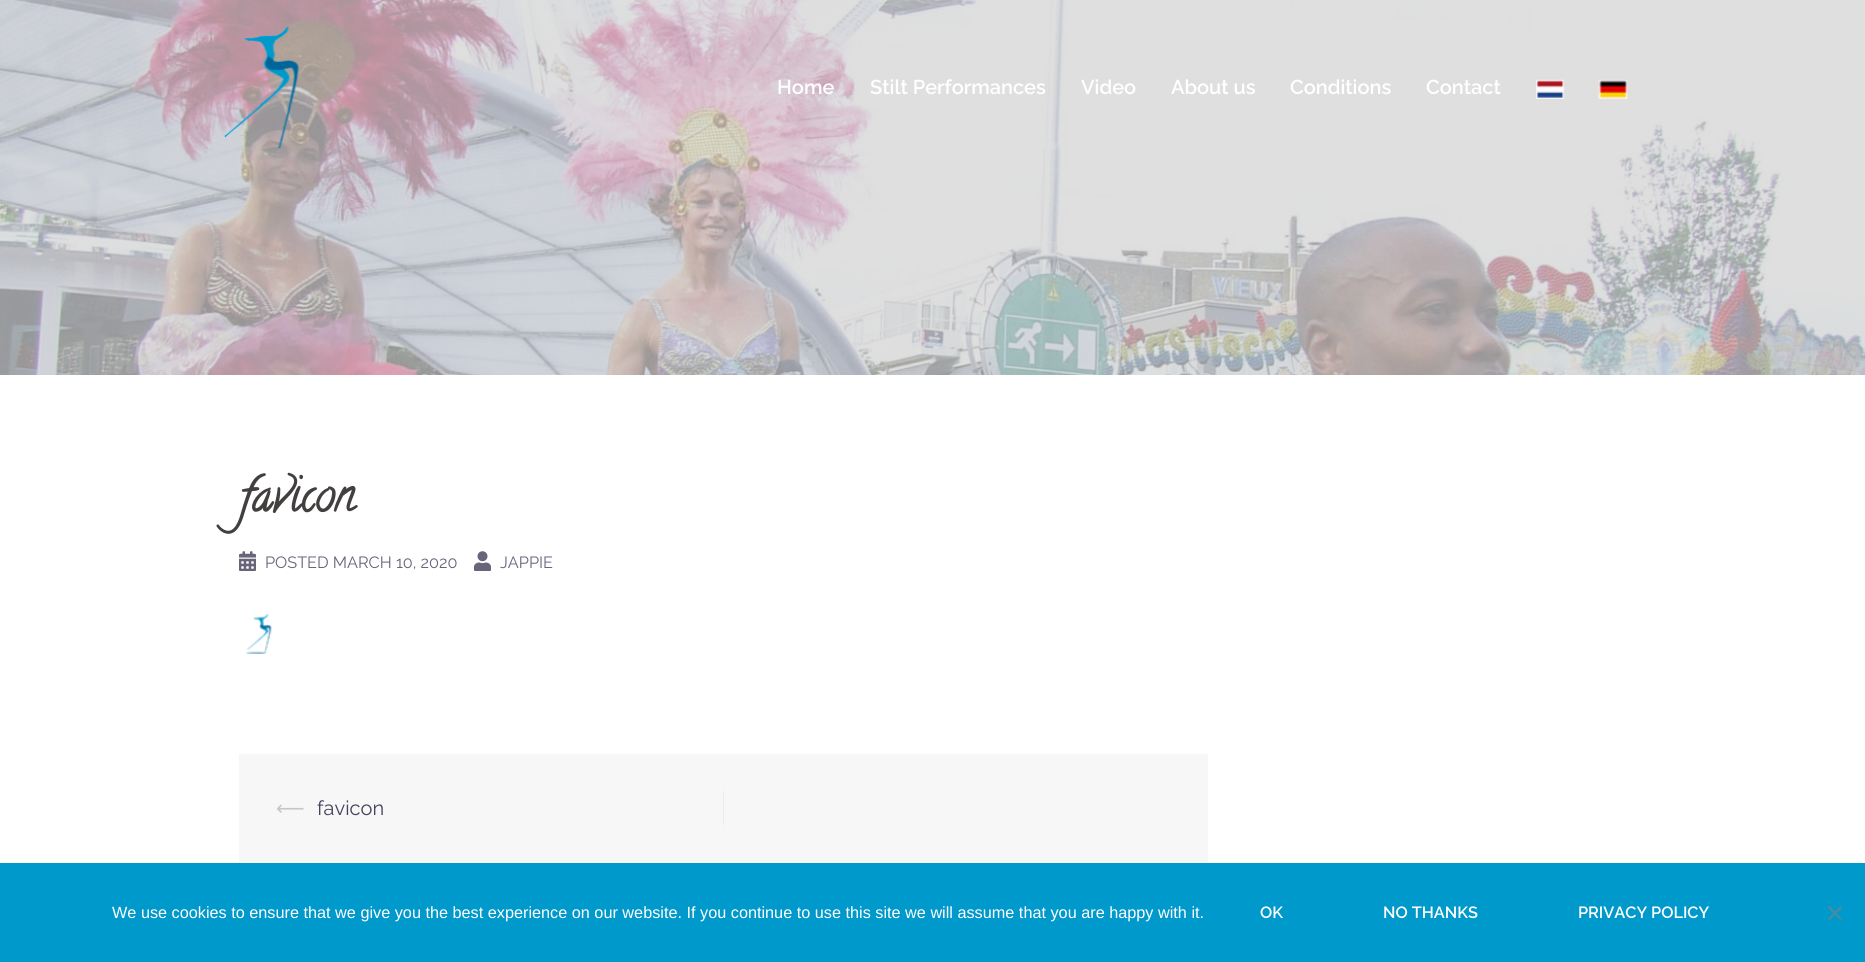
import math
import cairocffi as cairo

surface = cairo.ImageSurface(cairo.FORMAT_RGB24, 1865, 962)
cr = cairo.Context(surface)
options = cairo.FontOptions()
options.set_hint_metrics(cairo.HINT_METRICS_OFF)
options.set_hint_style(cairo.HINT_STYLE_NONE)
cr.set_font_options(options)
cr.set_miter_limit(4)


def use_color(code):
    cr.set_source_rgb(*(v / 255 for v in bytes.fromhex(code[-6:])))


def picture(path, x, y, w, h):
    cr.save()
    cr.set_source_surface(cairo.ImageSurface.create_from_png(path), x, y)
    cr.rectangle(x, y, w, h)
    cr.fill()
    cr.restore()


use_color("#ffffff")
cr.paint()
picture("img1.png", 0, 0, 1865, 375)
picture("img2.png", 224, 26, 76, 123)
cr.select_font_face("Raleway SemiBold")
cr.set_font_size(20)
use_color("#ffffff")
cr.move_to(777, 94)
cr.show_text("Home")
cr.move_to(870, 94)
cr.show_text("Stilt Performances")
cr.move_to(1081, 94)
cr.show_text("Video")
cr.move_to(1171, 94)
cr.show_text("About us")
cr.move_to(1290, 94)
cr.show_text("Conditions")
cr.move_to(1426, 94)
cr.show_text("Contact")
picture("img3.png", 1536, 79, 29, 20)
picture("img4.png", 1598, 79, 30, 20)
cr.select_font_face("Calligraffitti", cairo.FONT_SLANT_NORMAL, cairo.FONT_WEIGHT_BOLD)
cr.set_font_size(45)
use_color("#443f3f")
cr.move_to(239, 510)
cr.show_text("favicon")
picture("img5.png", 239, 551, 17, 20)
cr.select_font_face("Raleway")
cr.set_font_size(16.25)
use_color("#68647a")
cr.move_to(265, 568)
cr.show_text("POSTED MARCH 10, 2020")
picture("img6.png", 474, 551, 17, 20)
cr.move_to(500, 568)
cr.show_text("JAPPIE")
picture("img7.png", 246, 613, 26, 41)
use_color("#f7f7f7")
cr.rectangle(239, 754, 969, 109)
cr.fill()
use_color("#ebebeb")
cr.rectangle(723, 791, 1, 34)
cr.fill()
cr.select_font_face("DejaVu Sans")
cr.set_font_size(20)
use_color("#c7c7c7")
cr.move_to(276, 815)
cr.show_text("⟵")
cr.select_font_face("Raleway")
use_color("#47425d")
cr.move_to(317, 815)
cr.show_text("favicon")
use_color("#0099cb")
cr.rectangle(0, 863, 1865, 99)
cr.fill()
cr.select_font_face("Liberation Sans")
cr.set_font_size(16.25)
use_color("#ffffff")
cr.move_to(112, 918)
cr.show_text("We use cookies to ensure that we give you the best experience on our website. If you continue to use this site we will assume that you are happy with it.")
cr.select_font_face("Raleway SemiBold")
cr.move_to(1260, 918)
cr.show_text("OK")
cr.move_to(1383, 918)
cr.show_text("NO THANKS")
cr.move_to(1578, 918)
cr.show_text("PRIVACY POLICY")
use_color("#408da6")
cr.new_path()
cr.move_to(1840.5, 905.5)
cr.line_to(1842.5, 907.5)
cr.line_to(1829.5, 920.5)
cr.line_to(1827.5, 919)
cr.close_path()
cr.fill()
cr.new_path()
cr.move_to(1827.5, 907.5)
cr.line_to(1829.5, 905.5)
cr.line_to(1842.5, 919)
cr.line_to(1840.5, 920.5)
cr.close_path()
cr.fill()
surface.write_to_png("result.png")
